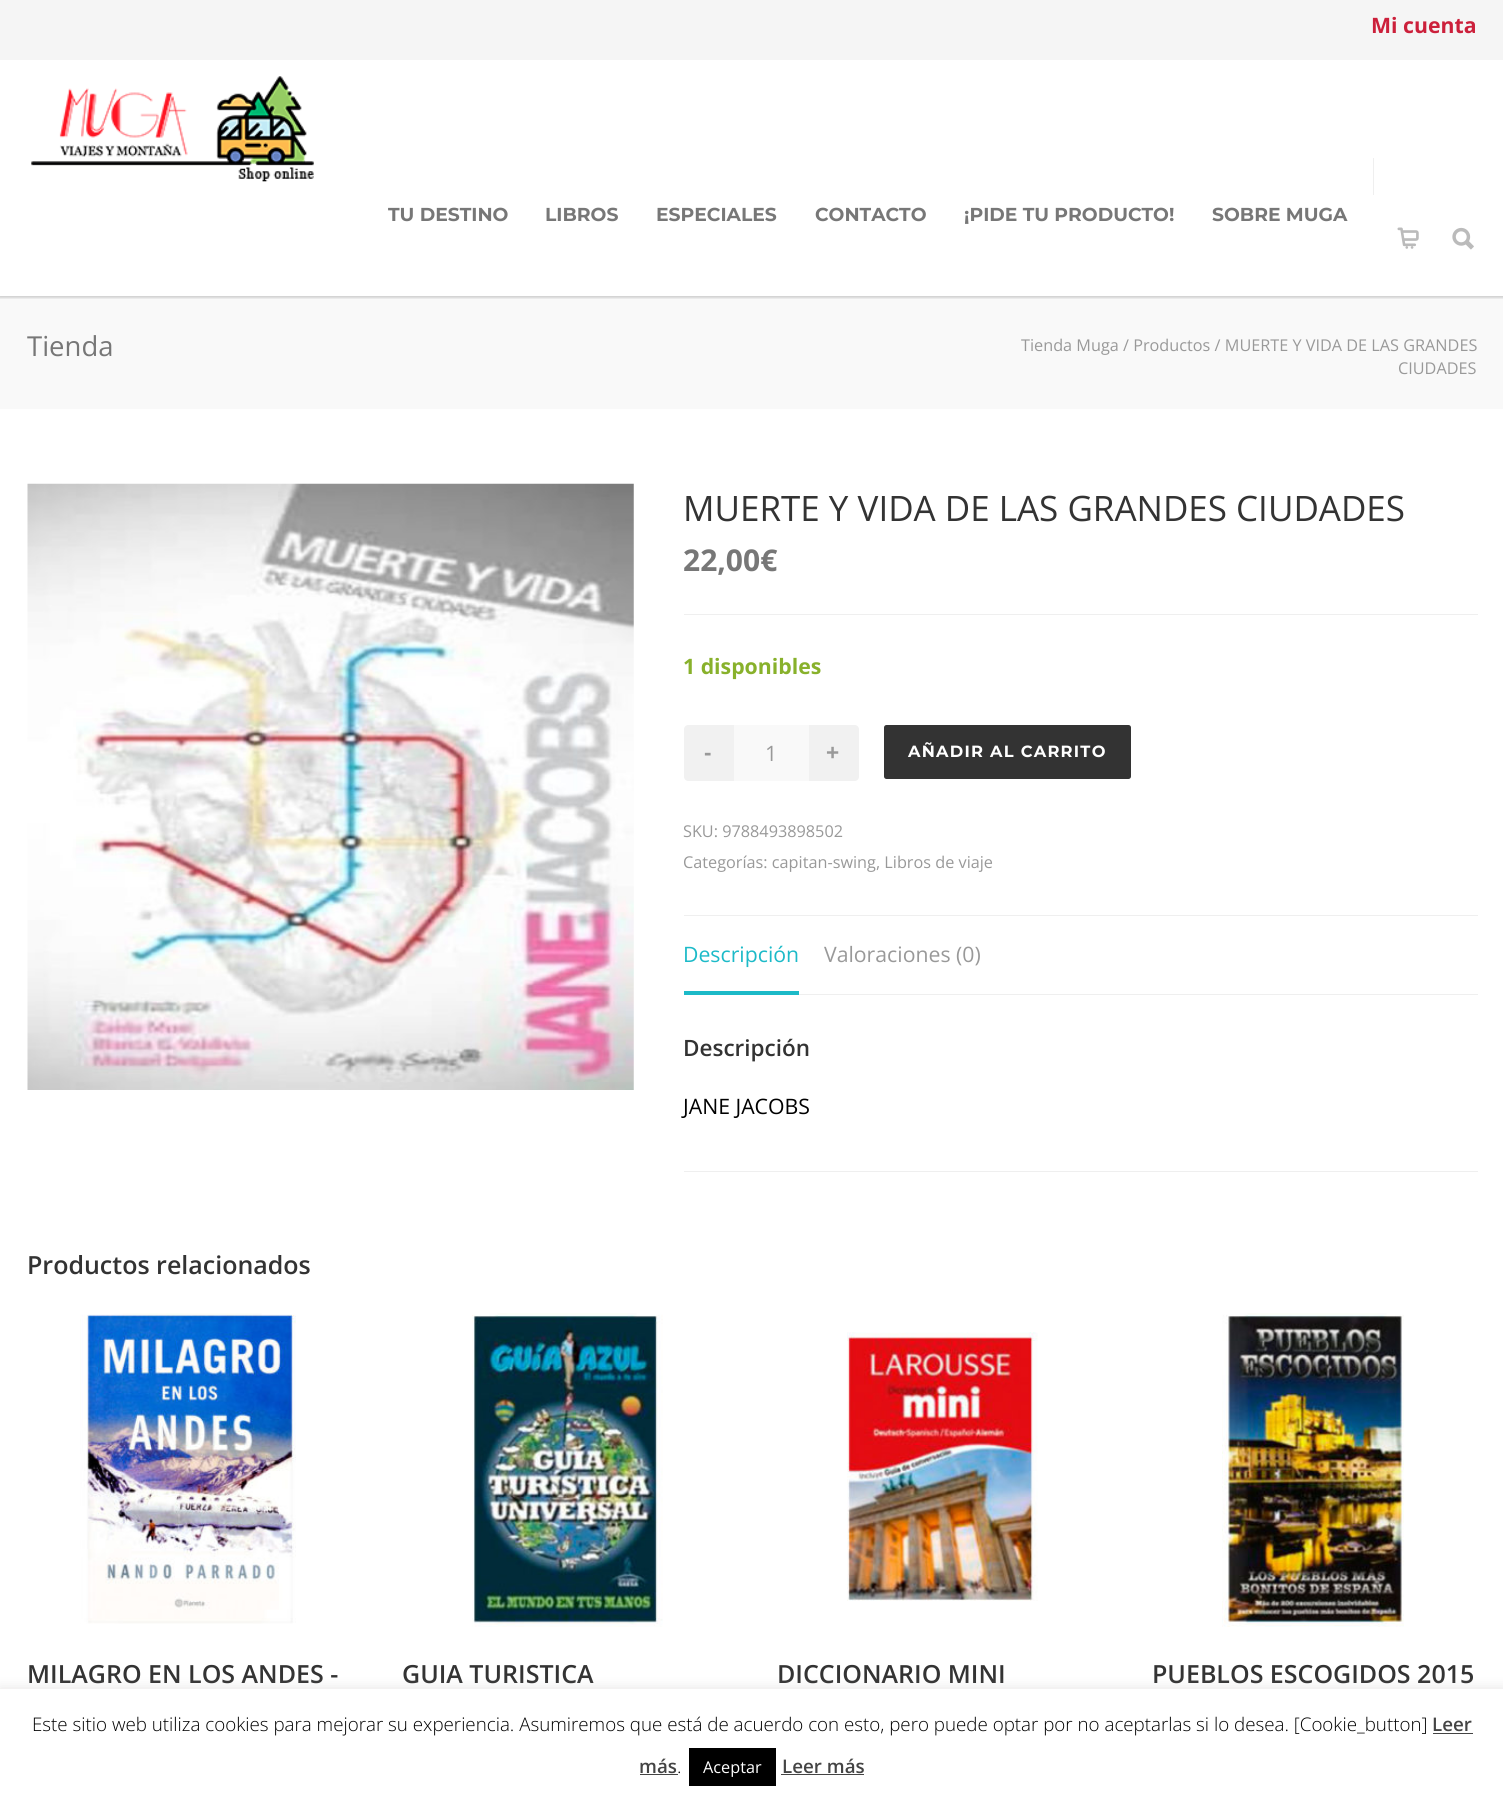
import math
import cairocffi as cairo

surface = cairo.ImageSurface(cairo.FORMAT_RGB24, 1503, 1801)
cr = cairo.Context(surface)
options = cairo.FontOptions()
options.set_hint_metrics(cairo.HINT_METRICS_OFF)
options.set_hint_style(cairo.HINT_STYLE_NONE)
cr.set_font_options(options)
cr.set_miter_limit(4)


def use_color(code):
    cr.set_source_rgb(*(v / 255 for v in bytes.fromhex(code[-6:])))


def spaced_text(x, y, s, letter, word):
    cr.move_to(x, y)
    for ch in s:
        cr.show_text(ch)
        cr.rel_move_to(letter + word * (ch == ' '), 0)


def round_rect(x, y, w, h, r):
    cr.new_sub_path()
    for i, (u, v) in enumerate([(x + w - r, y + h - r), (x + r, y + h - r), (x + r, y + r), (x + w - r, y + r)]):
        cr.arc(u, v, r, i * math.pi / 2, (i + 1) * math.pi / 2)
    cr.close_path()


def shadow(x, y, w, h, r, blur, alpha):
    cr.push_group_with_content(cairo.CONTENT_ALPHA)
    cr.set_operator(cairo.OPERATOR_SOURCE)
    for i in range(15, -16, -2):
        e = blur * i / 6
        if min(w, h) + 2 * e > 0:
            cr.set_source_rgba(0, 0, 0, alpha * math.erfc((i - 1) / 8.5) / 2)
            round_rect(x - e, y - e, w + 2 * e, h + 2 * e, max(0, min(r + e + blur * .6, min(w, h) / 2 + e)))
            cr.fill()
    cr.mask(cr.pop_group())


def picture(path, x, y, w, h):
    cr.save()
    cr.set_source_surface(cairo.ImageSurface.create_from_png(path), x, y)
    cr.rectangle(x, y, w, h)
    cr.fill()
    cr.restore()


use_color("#ffffff")
cr.paint()
use_color("#f9f9f9")
cr.rectangle(0, 296, 1503, 113)
cr.fill()
cr.save()
cr.rectangle(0, 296, 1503, 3)
cr.clip()
use_color("#000000")
shadow(-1, 59, 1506, 239, 0, 1, 0.16)
cr.restore()
use_color("#f5f5f5")
cr.rectangle(0, 0, 1503, 60)
cr.fill()
cr.select_font_face("Open Sans", cairo.FONT_SLANT_NORMAL, cairo.FONT_WEIGHT_BOLD)
cr.set_font_size(21.25)
use_color("#cc203b")
cr.move_to(1371, 33)
cr.show_text("Mi cuenta")
picture("img1.png", 31, 76, 283, 106)
cr.select_font_face("Montserrat", cairo.FONT_SLANT_NORMAL, cairo.FONT_WEIGHT_BOLD)
cr.set_font_size(18.75)
use_color("#777777")
cr.move_to(388, 221)
cr.show_text("TU DESTINO")
cr.move_to(545, 221)
cr.show_text("LIBROS")
cr.move_to(656, 221)
cr.show_text("ESPECIALES")
cr.move_to(815, 221)
cr.show_text("CONTACTO")
cr.move_to(964, 221)
cr.show_text("¡PIDE TU PRODUCTO!")
cr.move_to(1212, 221)
cr.show_text("SOBRE MUGA")
use_color("#efefef")
cr.rectangle(1373, 158, 1, 37)
cr.fill()
picture("img2.png", 1397, 227, 22, 22)
picture("img3.png", 1452, 227, 22, 23)
cr.select_font_face("Open Sans")
cr.set_font_size(27.5)
use_color("#777777")
cr.move_to(27, 356)
cr.show_text("Tienda")
cr.set_font_size(16.25)
use_color("#999999")
cr.move_to(1021, 351)
cr.show_text("Tienda Muga / Productos / MUERTE Y VIDA DE LAS GRANDES")
cr.move_to(1398, 374)
cr.show_text("CIUDADES")
picture("img4.png", 27, 483, 607, 607)
cr.set_font_size(35)
use_color("#333333")
cr.move_to(683, 521)
cr.show_text("MUERTE Y VIDA DE LAS GRANDES CIUDADES")
use_color("#efefef")
cr.rectangle(684, 614, 794, 1)
cr.fill()
cr.select_font_face("Open Sans", cairo.FONT_SLANT_NORMAL, cairo.FONT_WEIGHT_BOLD)
cr.set_font_size(30)
use_color("#777777")
cr.move_to(683, 571)
cr.show_text("22,00€")
cr.set_font_size(21.25)
use_color("#88b12b")
cr.move_to(683, 674)
cr.show_text("1 disponibles")
use_color("#f1f1f1")
cr.new_path()
cr.move_to(688, 725)
cr.line_to(734, 725)
cr.line_to(734, 781)
cr.line_to(688, 781)
cr.curve_to(686, 781, 684, 779, 684, 777)
cr.line_to(684, 729)
cr.curve_to(684, 727, 686, 725, 688, 725)
cr.close_path()
cr.fill()
cr.select_font_face("Liberation Sans", cairo.FONT_SLANT_NORMAL, cairo.FONT_WEIGHT_BOLD)
cr.set_font_size(22.5)
use_color("#999999")
spaced_text(704, 760, "-", 1.25, 0)
use_color("#f9f9f9")
cr.rectangle(734, 725, 75, 56)
cr.fill()
cr.select_font_face("Open Sans")
cr.set_font_size(21.25)
use_color("#999999")
cr.move_to(765, 761)
cr.show_text("1")
use_color("#f1f1f1")
cr.new_path()
cr.move_to(809, 725)
cr.line_to(855, 725)
cr.curve_to(857, 725, 859, 727, 859, 729)
cr.line_to(859, 777)
cr.curve_to(859, 779, 857, 781, 855, 781)
cr.line_to(809, 781)
cr.close_path()
cr.fill()
cr.select_font_face("Liberation Sans", cairo.FONT_SLANT_NORMAL, cairo.FONT_WEIGHT_BOLD)
cr.set_font_size(22.5)
use_color("#999999")
spaced_text(826, 760, "+", 1.25, 0)
use_color("#333333")
round_rect(884, 725, 247, 54, 2.5)
cr.fill()
cr.select_font_face("Montserrat", cairo.FONT_SLANT_NORMAL, cairo.FONT_WEIGHT_BOLD)
cr.set_font_size(16.25)
use_color("#ffffff")
spaced_text(908, 757, "AÑADIR AL CARRITO", 1.25, 0)
cr.select_font_face("Open Sans")
use_color("#999999")
cr.move_to(683, 837)
cr.show_text("SKU: 9788493898502")
cr.move_to(683, 868)
cr.show_text("Categorías: capitan-swing, Libros de viaje")
use_color("#efefef")
cr.rectangle(684, 915, 794, 1)
cr.fill()
use_color("#1cbac8")
cr.rectangle(684, 991, 115, 4)
cr.fill()
cr.set_font_size(21.25)
cr.move_to(683, 962)
cr.show_text("Descripción")
use_color("#999999")
cr.move_to(824, 962)
cr.show_text("Valoraciones (0)")
use_color("#efefef")
cr.rectangle(799, 994, 679, 1)
cr.fill()
cr.rectangle(684, 1171, 794, 1)
cr.fill()
cr.select_font_face("Open Sans SemiBold")
cr.set_font_size(22.5)
use_color("#333333")
cr.move_to(683, 1056)
cr.show_text("Descripción")
cr.select_font_face("Open Sans")
cr.set_font_size(21.25)
use_color("#000000")
cr.move_to(683, 1114)
cr.show_text("JANE JACOBS")
cr.select_font_face("Open Sans SemiBold")
cr.set_font_size(25)
use_color("#333333")
cr.move_to(27, 1274)
cr.show_text("Productos relacionados")
picture("img5.png", 80, 1313, 216, 311)
cr.move_to(27, 1683)
cr.show_text("MILAGRO EN LOS ANDES -")
picture("img6.png", 472, 1313, 191, 314)
cr.move_to(402, 1683)
cr.show_text("GUIA TURISTICA")
picture("img7.png", 847, 1332, 191, 269)
cr.move_to(777, 1683)
cr.show_text("DICCIONARIO MINI")
picture("img8.png", 1222, 1313, 182, 314)
cr.move_to(1152, 1683)
cr.show_text("PUEBLOS ESCOGIDOS 2015")
use_color("#acabab")
shadow(0, 1688, 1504, 112, 0, 6, 0.3)
use_color("#ffffff")
cr.rectangle(0, 1689, 1503, 112)
cr.fill()
cr.select_font_face("Open Sans Light")
cr.set_font_size(18.75)
use_color("#000000")
cr.move_to(32, 1731)
cr.show_text("Este sitio web utiliza cookies para mejorar su experiencia. Asumiremos que está de acuerdo con esto, pero puede optar por no aceptarlas si lo desea. [Cookie_button]")
cr.select_font_face("Open Sans SemiBold")
use_color("#444444")
cr.move_to(1432, 1731)
cr.show_text("Leer")
cr.rectangle(1433, 1733, 40, 1)
cr.fill()
cr.move_to(639, 1773)
cr.show_text("más")
cr.rectangle(640, 1774, 38, 1)
cr.fill()
cr.select_font_face("Open Sans Light")
use_color("#000000")
cr.move_to(677, 1773)
cr.show_text(".")
cr.rectangle(689, 1748, 87, 38)
cr.fill()
cr.select_font_face("Open Sans")
cr.set_font_size(16.25)
use_color("#ffffff")
cr.move_to(703, 1773)
cr.show_text("Aceptar")
cr.select_font_face("Open Sans SemiBold")
cr.set_font_size(18.75)
use_color("#444444")
cr.move_to(782, 1773)
cr.show_text("Leer más")
cr.rectangle(781, 1774, 83, 1)
cr.fill()
surface.write_to_png("result.png")
